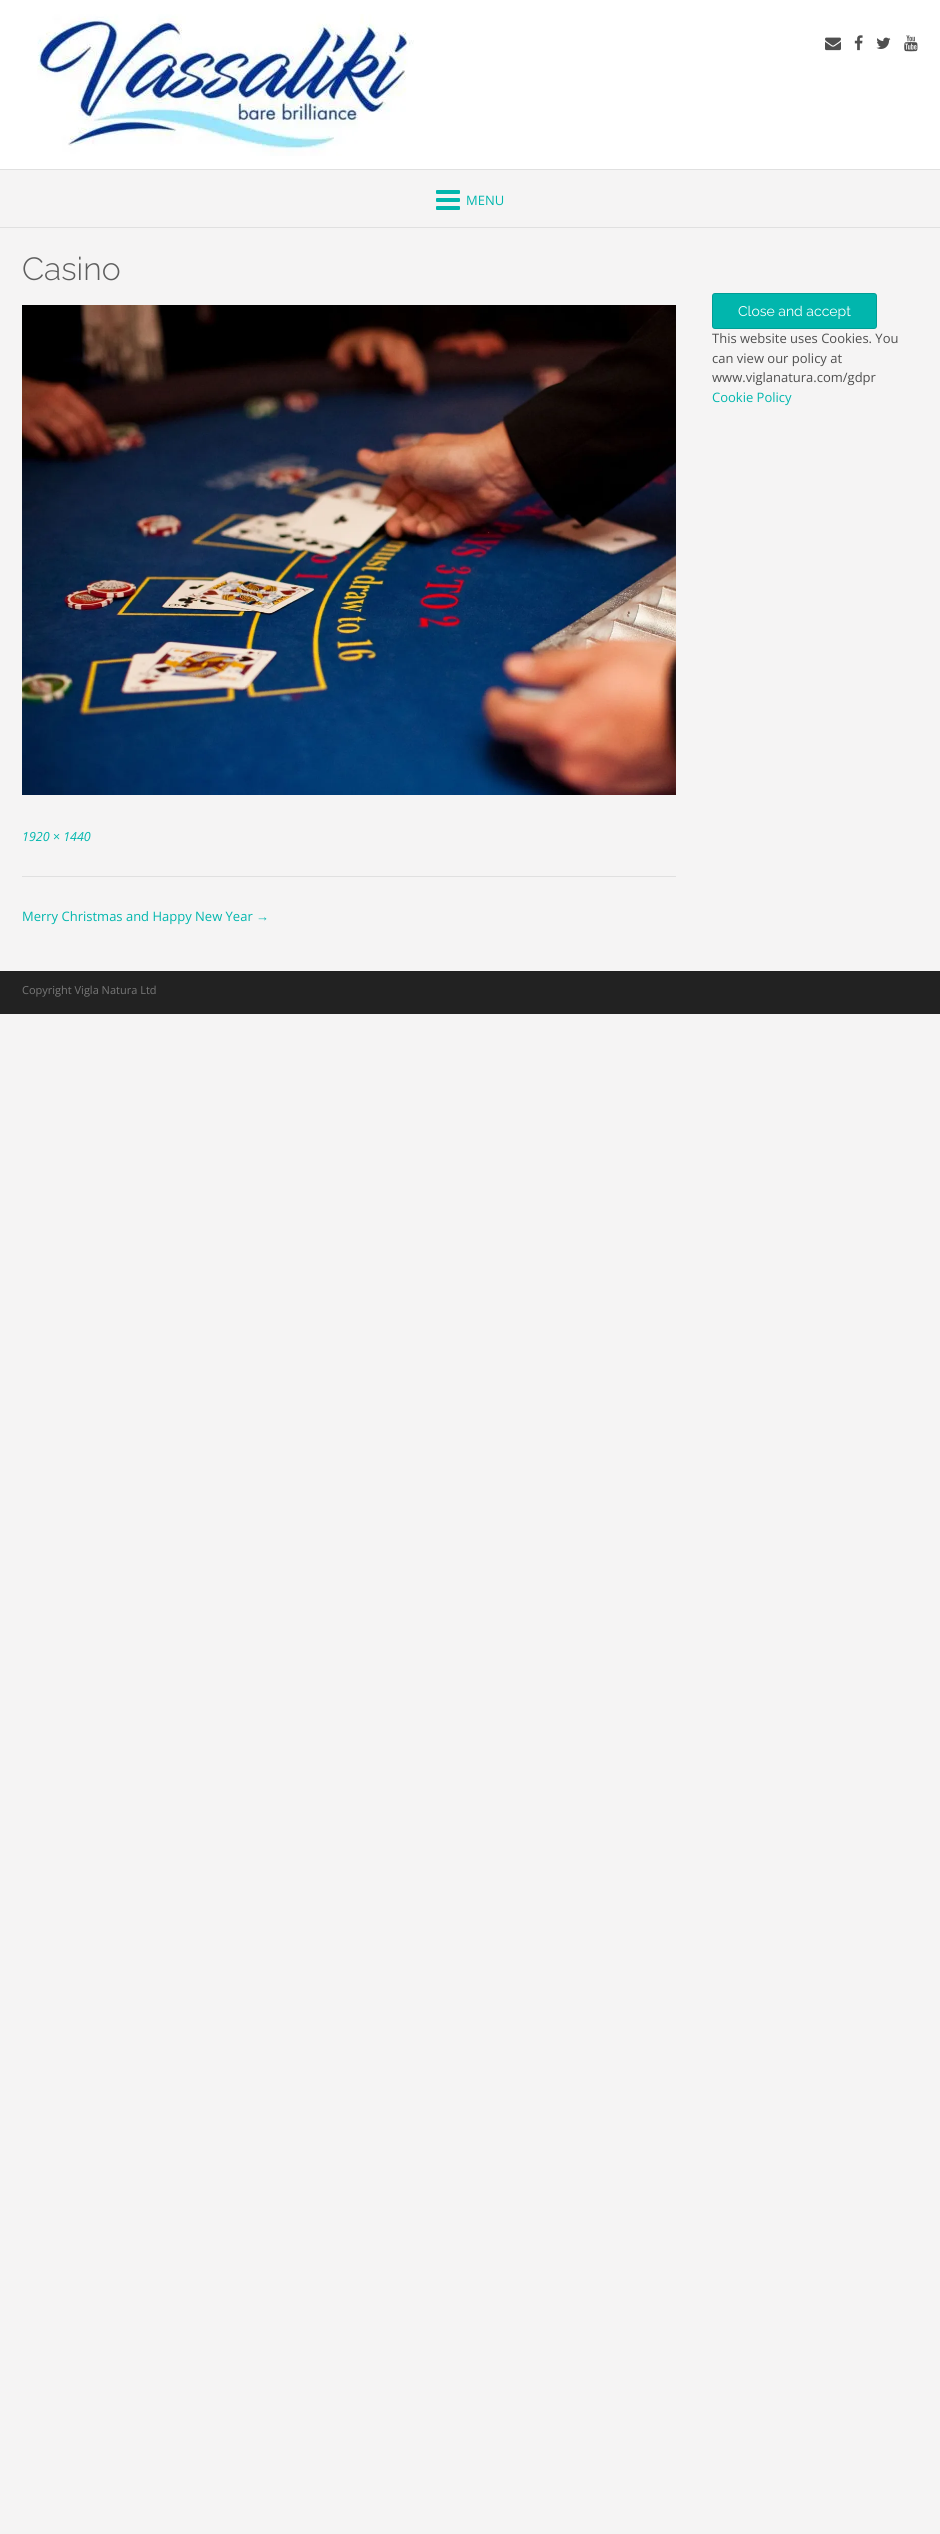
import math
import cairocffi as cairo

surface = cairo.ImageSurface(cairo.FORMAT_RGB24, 940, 2534)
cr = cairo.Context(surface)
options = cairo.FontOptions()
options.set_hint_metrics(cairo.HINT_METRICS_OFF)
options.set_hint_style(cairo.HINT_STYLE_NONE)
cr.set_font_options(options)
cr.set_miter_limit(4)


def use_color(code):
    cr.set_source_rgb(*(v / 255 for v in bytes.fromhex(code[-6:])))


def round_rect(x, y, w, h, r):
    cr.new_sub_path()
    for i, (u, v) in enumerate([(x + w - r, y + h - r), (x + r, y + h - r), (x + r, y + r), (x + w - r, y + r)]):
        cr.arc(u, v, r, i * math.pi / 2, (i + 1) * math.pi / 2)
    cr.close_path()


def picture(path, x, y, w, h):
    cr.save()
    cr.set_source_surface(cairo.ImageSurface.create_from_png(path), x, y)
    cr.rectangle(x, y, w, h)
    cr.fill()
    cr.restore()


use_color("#f5f4f4")
cr.paint()
use_color("#ffffff")
cr.rectangle(0, 0, 940, 169)
cr.fill()
use_color("#e0e0e0")
cr.rectangle(0, 227, 940, 1)
cr.fill()
picture("img1.png", 37, 14, 377, 142)
picture("img2.png", 825, 37, 16, 14)
picture("img3.png", 854, 35, 9, 16)
picture("img4.png", 876, 37, 15, 12)
picture("img5.png", 904, 35, 14, 17)
cr.rectangle(0, 169, 940, 1)
cr.fill()
picture("img6.png", 436, 190, 24, 20)
cr.select_font_face("Open Sans")
cr.set_font_size(13)
use_color("#01b6ad")
cr.move_to(466, 205)
cr.show_text("MENU")
use_color("#e0e0e0")
cr.rectangle(22, 876, 654, 1)
cr.fill()
cr.select_font_face("Raleway Light")
cr.set_font_size(32)
use_color("#5e5e5e")
cr.move_to(22, 280)
cr.show_text("Casino")
picture("img7.png", 22, 305, 654, 490)
cr.select_font_face("Open Sans", cairo.FONT_SLANT_ITALIC)
cr.set_font_size(12.5)
use_color("#01b6ad")
cr.move_to(22, 841)
cr.show_text("1920 × 1440")
cr.select_font_face("Open Sans")
cr.set_font_size(13)
cr.move_to(22, 921)
cr.show_text("Merry Christmas and Happy New Year")
cr.select_font_face("Liberation Sans")
cr.move_to(256, 921)
cr.show_text("→")
round_rect(712, 293, 165, 36, 3)
cr.fill()
round_rect(712.5, 293.5, 164, 35, 2.5)
cr.set_source_rgba(0, 0, 0, 0.14)
cr.set_line_width(1)
cr.stroke()
cr.select_font_face("Raleway")
cr.set_font_size(14)
use_color("#ffffff")
cr.move_to(738, 316)
cr.show_text("Close and accept")
cr.select_font_face("Open Sans")
cr.set_font_size(13)
use_color("#4f4f4f")
cr.move_to(712, 343)
cr.show_text("This website uses Cookies. You")
cr.move_to(712, 363)
cr.show_text("can view our policy at")
cr.move_to(712, 382)
cr.show_text("www.viglanatura.com/gdpr")
use_color("#01b6ad")
cr.move_to(712, 402)
cr.show_text("Cookie Policy")
use_color("#222222")
cr.rectangle(0, 972, 940, 42)
cr.fill()
use_color("#1f1f1f")
cr.rectangle(0, 971, 940, 1)
cr.fill()
cr.set_font_size(11)
use_color("#777777")
cr.move_to(22, 994)
cr.show_text("Copyright Vigla Natura Ltd")
surface.write_to_png("result.png")
